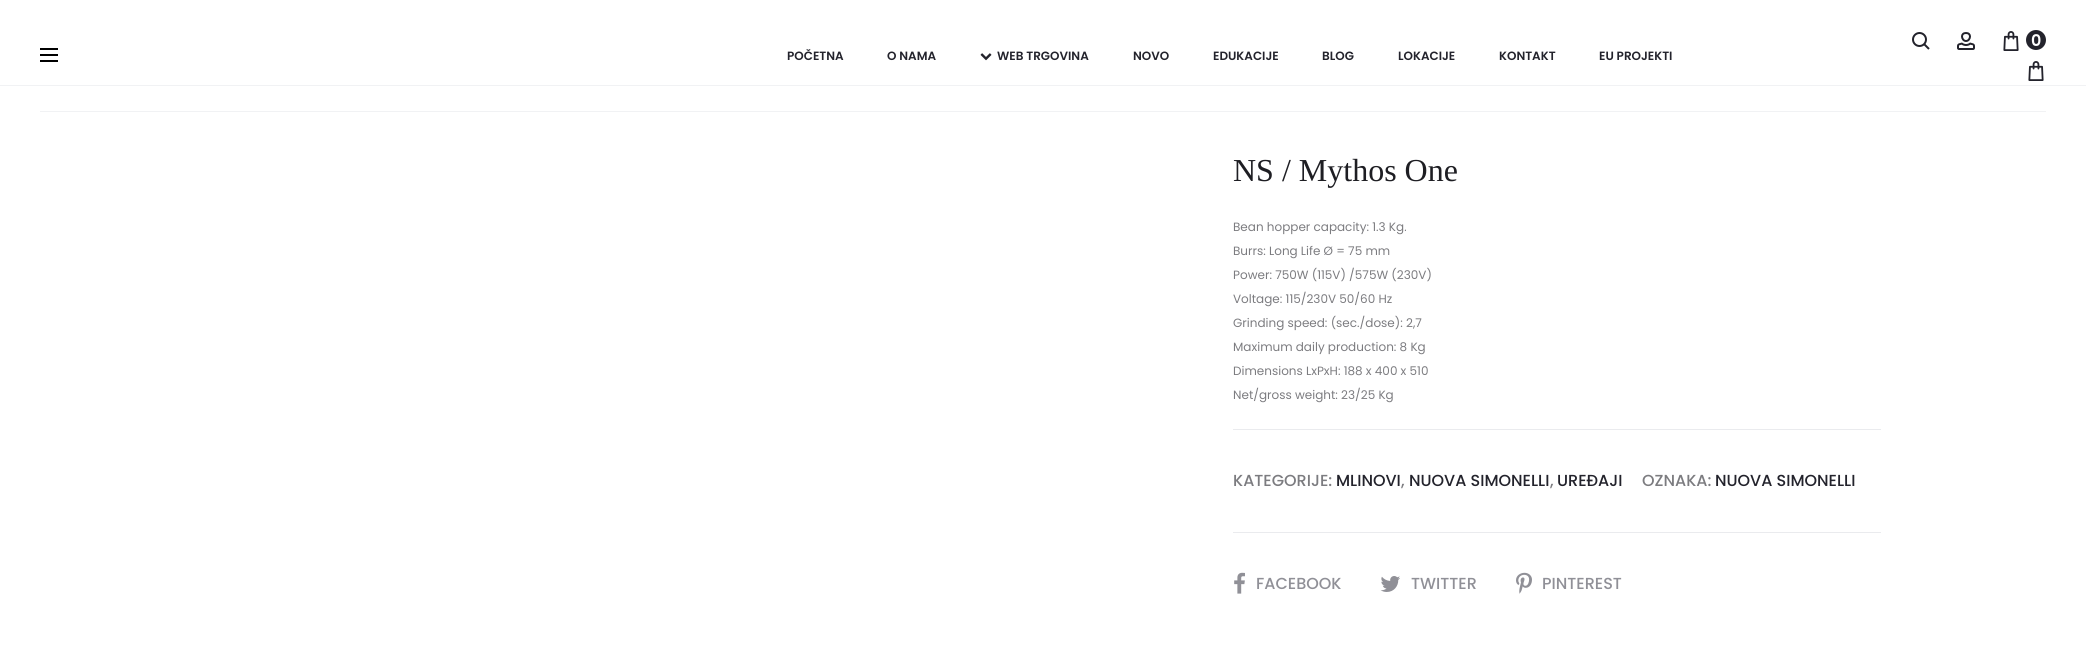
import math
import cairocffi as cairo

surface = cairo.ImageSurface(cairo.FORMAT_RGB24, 2086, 652)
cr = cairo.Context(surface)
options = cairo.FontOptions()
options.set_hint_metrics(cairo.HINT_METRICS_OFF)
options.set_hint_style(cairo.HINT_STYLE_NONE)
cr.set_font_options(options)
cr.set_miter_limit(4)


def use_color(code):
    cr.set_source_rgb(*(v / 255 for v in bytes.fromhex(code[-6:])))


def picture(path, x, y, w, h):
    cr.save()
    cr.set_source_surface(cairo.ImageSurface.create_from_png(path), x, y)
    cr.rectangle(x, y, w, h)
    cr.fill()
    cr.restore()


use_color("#ffffff")
cr.paint()
use_color("#f1f2f4")
cr.rectangle(0, 85, 2086, 1)
cr.fill()
cr.arc(1919.5, 39.5, 6.5, 0, 2 * math.pi)
use_color("#23232c")
cr.stroke()
cr.new_path()
cr.move_to(1924, 44)
cr.line_to(1929, 49)
cr.stroke()
picture("img1.png", 1957, 32, 18, 18)
picture("img2.png", 2003, 31, 16, 20)
cr.arc(2036, 40, 10, 0, 2 * math.pi)
cr.fill()
cr.select_font_face("Poppins SemiBold")
cr.set_font_size(16)
use_color("#ffffff")
cr.move_to(2031, 46)
cr.show_text("0")
picture("img2.png", 2028, 61, 16, 20)
use_color("#000000")
cr.rectangle(40, 54, 18, 2)
cr.fill()
cr.rectangle(40, 48, 18, 2)
cr.fill()
cr.rectangle(40, 60, 18, 2)
cr.fill()
cr.set_font_size(12)
use_color("#23232c")
cr.move_to(787, 60)
cr.show_text("POČETNA")
cr.move_to(887, 60)
cr.show_text("O NAMA")
picture("img3.png", 980, 53, 12, 8)
cr.move_to(997, 60)
cr.show_text("WEB TRGOVINA")
cr.move_to(1133, 60)
cr.show_text("NOVO")
cr.move_to(1213, 60)
cr.show_text("EDUKACIJE")
cr.move_to(1322, 60)
cr.show_text("BLOG")
cr.move_to(1398, 60)
cr.show_text("LOKACIJE")
cr.move_to(1499, 60)
cr.show_text("KONTAKT")
cr.move_to(1599, 60)
cr.show_text("EU PROJEKTI")
use_color("#f1f2f4")
cr.rectangle(40, 111, 2006, 1)
cr.fill()
cr.select_font_face("Liberation Serif")
cr.set_font_size(32)
use_color("#1e1e23")
cr.move_to(1233, 181)
cr.show_text("NS / Mythos One")
cr.select_font_face("Poppins")
cr.set_font_size(12)
use_color("#7c7c80")
cr.move_to(1233, 231)
cr.show_text("Bean hopper capacity: 1.3 Kg.")
cr.move_to(1233, 255)
cr.show_text("Burrs: Long Life Ø = 75 mm")
cr.move_to(1233, 279)
cr.show_text("Power: 750W (115V) /575W (230V)")
cr.move_to(1233, 303)
cr.show_text("Voltage: 115/230V 50/60 Hz")
cr.move_to(1233, 327)
cr.show_text("Grinding speed: (sec./dose): 2,7")
cr.move_to(1233, 351)
cr.show_text("Maximum daily production: 8 Kg")
cr.move_to(1233, 375)
cr.show_text("Dimensions LxPxH: 188 x 400 x 510")
cr.move_to(1233, 399)
cr.show_text("Net/gross weight: 23/25 Kg")
use_color("#eaebee")
cr.rectangle(1233, 429, 648, 1)
cr.fill()
cr.rectangle(1233, 532, 648, 1)
cr.fill()
cr.select_font_face("Poppins Medium")
cr.set_font_size(16)
use_color("#7c7c80")
cr.move_to(1233, 486)
cr.show_text("KATEGORIJE:")
use_color("#23232c")
cr.move_to(1336, 486)
cr.show_text("MLINOVI")
use_color("#7c7c80")
cr.move_to(1401, 486)
cr.show_text(",")
use_color("#23232c")
cr.move_to(1409, 486)
cr.show_text("NUOVA SIMONELLI")
use_color("#7c7c80")
cr.move_to(1550, 486)
cr.show_text(",")
use_color("#23232c")
cr.move_to(1557, 486)
cr.show_text("UREĐAJI")
use_color("#7c7c80")
cr.move_to(1642, 486)
cr.show_text("OZNAKA:")
use_color("#23232c")
cr.move_to(1715, 486)
cr.show_text("NUOVA SIMONELLI")
picture("img4.png", 1234, 572, 11, 22)
use_color("#909097")
cr.move_to(1256, 589)
cr.show_text("FACEBOOK")
picture("img5.png", 1380, 576, 20, 16)
cr.move_to(1411, 589)
cr.show_text("TWITTER")
picture("img6.png", 1516, 572, 16, 22)
cr.move_to(1542, 589)
cr.show_text("PINTEREST")
surface.write_to_png("result.png")
